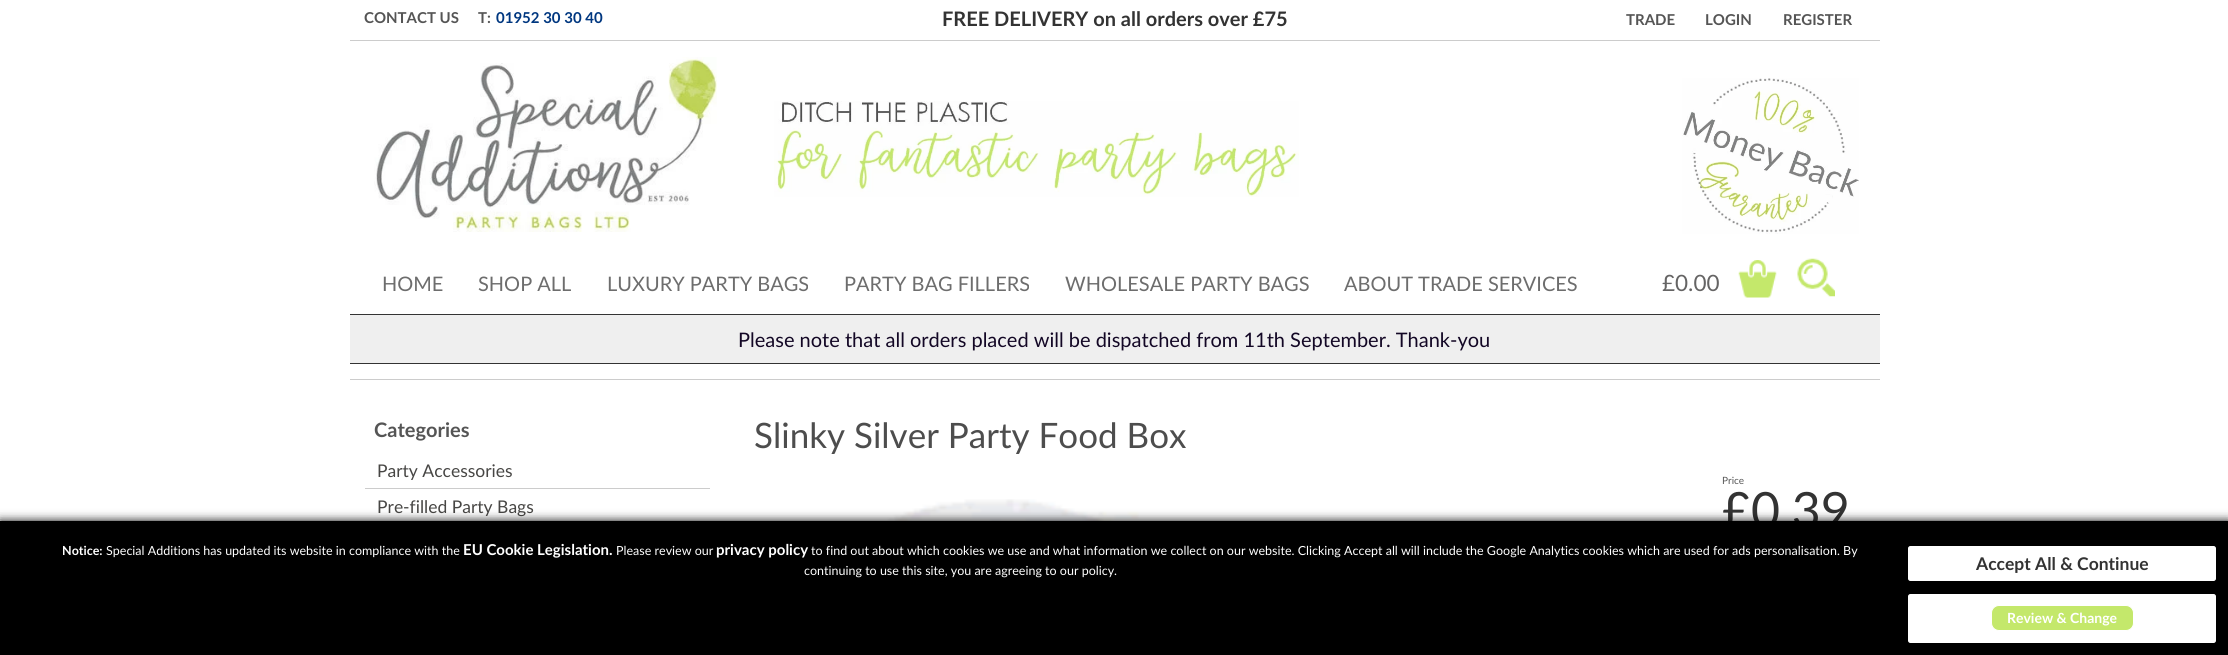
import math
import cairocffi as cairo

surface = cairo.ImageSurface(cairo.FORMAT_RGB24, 2228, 655)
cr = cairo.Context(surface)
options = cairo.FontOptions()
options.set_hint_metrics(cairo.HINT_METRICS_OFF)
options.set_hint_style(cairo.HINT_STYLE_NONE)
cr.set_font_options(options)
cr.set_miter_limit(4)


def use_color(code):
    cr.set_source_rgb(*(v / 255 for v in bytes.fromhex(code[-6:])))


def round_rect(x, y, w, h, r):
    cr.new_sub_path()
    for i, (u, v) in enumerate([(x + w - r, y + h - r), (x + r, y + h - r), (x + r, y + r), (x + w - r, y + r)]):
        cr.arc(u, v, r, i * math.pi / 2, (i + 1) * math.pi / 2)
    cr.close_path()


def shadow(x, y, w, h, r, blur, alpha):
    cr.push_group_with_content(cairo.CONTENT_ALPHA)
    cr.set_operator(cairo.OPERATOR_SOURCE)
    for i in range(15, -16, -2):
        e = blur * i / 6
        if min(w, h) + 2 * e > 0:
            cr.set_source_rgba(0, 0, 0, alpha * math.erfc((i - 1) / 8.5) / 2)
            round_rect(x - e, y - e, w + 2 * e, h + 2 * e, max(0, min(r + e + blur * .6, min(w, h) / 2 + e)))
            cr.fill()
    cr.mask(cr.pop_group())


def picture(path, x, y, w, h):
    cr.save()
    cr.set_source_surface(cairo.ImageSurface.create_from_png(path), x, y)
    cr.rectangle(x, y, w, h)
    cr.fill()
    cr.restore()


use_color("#ffffff")
cr.paint()
use_color("#cccccc")
cr.rectangle(350, 379, 1530, 1)
cr.fill()
cr.rectangle(350, 40, 1530, 1)
cr.fill()
cr.select_font_face("Lato", cairo.FONT_SLANT_NORMAL, cairo.FONT_WEIGHT_BOLD)
cr.set_font_size(15)
use_color("#555555")
cr.move_to(364, 23)
cr.show_text("CONTACT US")
cr.move_to(478, 23)
cr.show_text("T:")
use_color("#003780")
cr.move_to(496, 23)
cr.show_text("01952 30 30 40")
cr.set_font_size(20)
use_color("#333333")
cr.move_to(942, 26)
cr.show_text("FREE DELIVERY on all orders over £75")
cr.set_font_size(15)
use_color("#555555")
cr.move_to(1626, 25)
cr.show_text("TRADE")
cr.move_to(1705, 25)
cr.show_text("LOGIN")
cr.move_to(1783, 25)
cr.show_text("REGISTER")
picture("img1.png", 374, 57, 343, 175)
picture("img2.png", 774, 101, 525, 96)
picture("img3.png", 1682, 78, 177, 156)
cr.select_font_face("Lato")
cr.set_font_size(20)
use_color("#6d6d6d")
cr.move_to(382, 291)
cr.show_text("HOME")
cr.move_to(478, 291)
cr.show_text("SHOP ALL")
cr.move_to(607, 291)
cr.show_text("LUXURY PARTY BAGS")
cr.move_to(844, 291)
cr.show_text("PARTY BAG FILLERS")
cr.move_to(1065, 291)
cr.show_text("WHOLESALE PARTY BAGS")
cr.move_to(1344, 291)
cr.show_text("ABOUT TRADE SERVICES")
cr.set_font_size(22.5)
use_color("#656464")
cr.move_to(1662, 291)
cr.show_text("£0.00")
picture("img4.png", 1738, 260, 39, 38)
picture("img5.png", 1797, 258, 38, 39)
use_color("#efefef")
cr.rectangle(350, 315, 1530, 48)
cr.fill()
use_color("#333333")
cr.rectangle(350, 314, 1530, 1)
cr.fill()
cr.rectangle(350, 363, 1530, 1)
cr.fill()
cr.set_font_size(20)
use_color("#130725")
cr.move_to(738, 347)
cr.show_text("Please note that all orders placed will be dispatched from 11th September. Thank-you")
cr.select_font_face("Lato", cairo.FONT_SLANT_NORMAL, cairo.FONT_WEIGHT_BOLD)
use_color("#555555")
cr.move_to(374, 437)
cr.show_text("Categories")
use_color("#cccccc")
cr.rectangle(365, 488, 345, 1)
cr.fill()
cr.select_font_face("Lato")
cr.set_font_size(17.5)
use_color("#474644")
cr.move_to(377, 477)
cr.show_text("Party Accessories")
cr.move_to(377, 513)
cr.show_text("Pre-filled Party Bags")
cr.set_font_size(35)
use_color("#4d4d4d")
cr.move_to(754, 448)
cr.show_text("Slinky Silver Party Food Box")
picture("img6.png", 785, 499, 413, 22)
cr.set_font_size(10)
use_color("#555555")
cr.move_to(1722, 484)
cr.show_text("Price")
cr.set_font_size(50)
use_color("#333333")
cr.move_to(1722, 528)
cr.show_text("£0.39")
use_color("#000000")
shadow(0, 521, 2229, 134, 0, 5, 1)
use_color("#000000")
cr.rectangle(0, 521, 2228, 134)
cr.fill()
cr.select_font_face("Lato", cairo.FONT_SLANT_NORMAL, cairo.FONT_WEIGHT_BOLD)
cr.set_font_size(12.5)
use_color("#ffffff")
cr.move_to(62, 555)
cr.show_text("Notice:")
cr.select_font_face("Lato")
cr.move_to(106, 555)
cr.show_text("Special Additions has updated its website in compliance with the")
cr.select_font_face("Lato", cairo.FONT_SLANT_NORMAL, cairo.FONT_WEIGHT_BOLD)
cr.set_font_size(15)
cr.move_to(463, 555)
cr.show_text("EU Cookie Legislation.")
cr.select_font_face("Lato")
cr.set_font_size(12.5)
cr.move_to(616, 555)
cr.show_text("Please review our")
cr.select_font_face("Lato", cairo.FONT_SLANT_NORMAL, cairo.FONT_WEIGHT_BOLD)
cr.set_font_size(15)
cr.move_to(716, 555)
cr.show_text("privacy policy")
cr.select_font_face("Lato")
cr.set_font_size(12.5)
cr.move_to(811, 555)
cr.show_text("to find out about which cookies we use and what information we collect on our website. Clicking Accept all will include the Google Analytics cookies which are used for ads personalisation. By")
cr.move_to(804, 575)
cr.show_text("continuing to use this site, you are agreeing to our policy.")
round_rect(1908.5, 546.5, 307, 34, 2)
cr.fill_preserve()
cr.set_line_width(1)
cr.stroke()
cr.select_font_face("Lato", cairo.FONT_SLANT_NORMAL, cairo.FONT_WEIGHT_BOLD)
cr.set_font_size(17.5)
use_color("#333333")
cr.move_to(1976, 570)
cr.show_text("Accept All & Continue")
use_color("#ffffff")
round_rect(1908.5, 594.5, 307, 48, 2)
cr.fill_preserve()
cr.stroke()
use_color("#c4e86b")
round_rect(1991.5, 605.5, 142, 25, 7.5)
cr.fill_preserve()
use_color("#ffffff")
cr.stroke()
cr.set_font_size(14)
cr.move_to(2007, 623)
cr.show_text("Review & Change")
surface.write_to_png("result.png")
